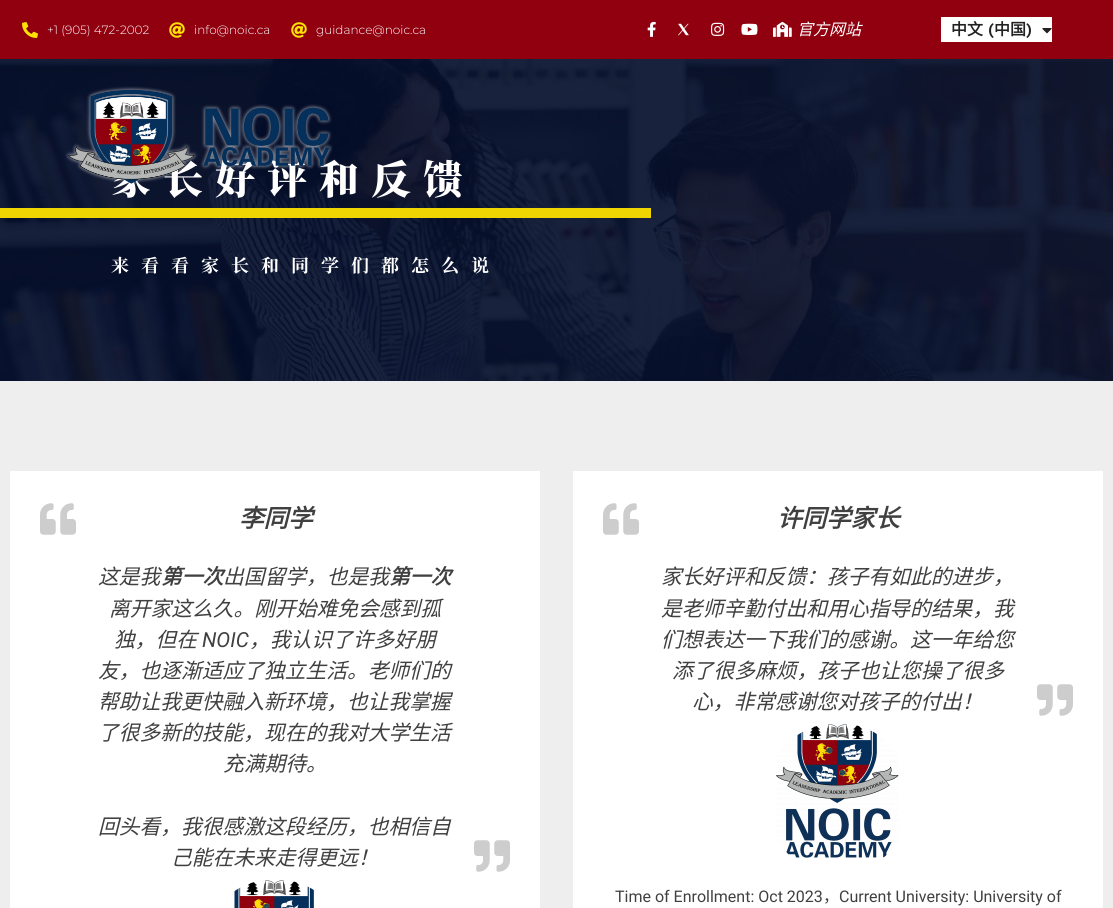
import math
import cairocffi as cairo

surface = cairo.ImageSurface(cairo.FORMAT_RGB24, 1113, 908)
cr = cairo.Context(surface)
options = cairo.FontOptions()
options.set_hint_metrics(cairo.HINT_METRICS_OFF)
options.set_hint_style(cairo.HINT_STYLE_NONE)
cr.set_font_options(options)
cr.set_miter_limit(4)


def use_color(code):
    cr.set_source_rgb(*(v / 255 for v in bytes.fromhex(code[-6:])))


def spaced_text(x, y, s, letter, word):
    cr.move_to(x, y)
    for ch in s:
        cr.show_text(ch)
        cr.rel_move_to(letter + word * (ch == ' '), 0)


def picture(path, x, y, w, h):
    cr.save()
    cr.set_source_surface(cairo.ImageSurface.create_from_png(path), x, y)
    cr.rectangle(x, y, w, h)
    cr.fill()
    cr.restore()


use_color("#ffffff")
cr.paint()
use_color("#90000f")
cr.rectangle(0, 0, 1113, 59)
cr.fill()
picture("img1.png", 22, 22, 16, 16)
cr.select_font_face("Montserrat Light")
cr.set_font_size(12)
use_color("#ffffff")
cr.move_to(47, 34)
cr.show_text("+1 (905) 472-2002")
picture("img2.png", 169, 22, 16, 16)
cr.move_to(194, 34)
cr.show_text("info@noic.ca")
picture("img2.png", 291, 22, 16, 16)
cr.move_to(316, 34)
cr.show_text("guidance@noic.ca")
picture("img3.png", 647, 21, 9, 16)
picture("img4.png", 678, 23, 11, 13)
picture("img5.png", 711, 22, 14, 14)
picture("img6.png", 741, 23, 17, 12)
picture("img7.png", 773, 21, 19, 16)
cr.select_font_face("Noto Sans CJK SC", cairo.FONT_SLANT_ITALIC)
cr.set_font_size(16)
cr.move_to(797, 35)
cr.show_text("官方网站")
cr.rectangle(941, 17, 111, 25)
cr.fill()
cr.select_font_face("Noto Sans CJK SC", cairo.FONT_SLANT_NORMAL, cairo.FONT_WEIGHT_BOLD)
use_color("#212121")
cr.move_to(951, 35)
cr.show_text("中文")
cr.select_font_face("Work Sans SemiBold")
cr.move_to(988, 35)
cr.show_text("(")
cr.select_font_face("Noto Sans CJK SC", cairo.FONT_SLANT_NORMAL, cairo.FONT_WEIGHT_BOLD)
cr.move_to(994, 35)
cr.show_text("中国")
cr.select_font_face("Work Sans SemiBold")
cr.move_to(1026, 35)
cr.show_text(")")
picture("img8.png", 1042, 28, 10, 6)
picture("img10.png", 0, 59, 1113, 322)
cr.select_font_face("Noto Serif SC Black")
cr.set_font_size(40)
use_color("#ffffff")
spaced_text(111, 194, "家长好评和反馈", 12, 0)
picture("img9.png", 65, 86, 268, 100)
use_color("#efd501")
cr.rectangle(0, 208, 651, 10)
cr.fill()
cr.select_font_face("Noto Serif SC", cairo.FONT_SLANT_NORMAL, cairo.FONT_WEIGHT_BOLD)
cr.set_font_size(18)
use_color("#ffffff")
spaced_text(111, 272, "来看看家长和同学们都怎么说", 12, 0)
use_color("#eeeeee")
cr.rectangle(0, 381, 1113, 527)
cr.fill()
use_color("#ffffff")
cr.rectangle(10, 471, 530, 437)
cr.fill()
picture("img11.png", 40, 503, 36, 32)
cr.select_font_face("Noto Sans CJK SC", cairo.FONT_SLANT_ITALIC, cairo.FONT_WEIGHT_BOLD)
cr.set_font_size(24.5)
use_color("#404040")
cr.move_to(239, 527)
cr.show_text("李同学")
cr.select_font_face("Noto Sans CJK SC", cairo.FONT_SLANT_ITALIC)
cr.set_font_size(20.75)
cr.move_to(98, 584)
cr.show_text("这是我")
cr.select_font_face("Noto Sans CJK SC", cairo.FONT_SLANT_ITALIC, cairo.FONT_WEIGHT_BOLD)
cr.move_to(161, 584)
cr.show_text("第一次")
cr.select_font_face("Noto Sans CJK SC", cairo.FONT_SLANT_ITALIC)
cr.move_to(223, 584)
cr.show_text("出国留学，也是我")
cr.select_font_face("Noto Sans CJK SC", cairo.FONT_SLANT_ITALIC, cairo.FONT_WEIGHT_BOLD)
cr.move_to(389, 584)
cr.show_text("第一次")
cr.select_font_face("Noto Sans CJK SC", cairo.FONT_SLANT_ITALIC)
cr.move_to(109, 616)
cr.show_text("离开家这么久。刚开始难免会感到孤")
cr.move_to(114, 647)
cr.show_text("独，但在")
cr.select_font_face("Roboto", cairo.FONT_SLANT_ITALIC)
cr.move_to(202, 647)
cr.show_text("NOIC")
cr.select_font_face("Noto Sans CJK SC", cairo.FONT_SLANT_ITALIC)
cr.move_to(249, 647)
cr.show_text("，我认识了许多好朋")
cr.move_to(98, 678)
cr.show_text("友，也逐渐适应了独立生活。老师们的")
cr.move_to(98, 709)
cr.show_text("帮助让我更快融入新环境，也让我掌握")
cr.move_to(98, 740)
cr.show_text("了很多新的技能，现在的我对大学生活")
cr.move_to(223, 771)
cr.show_text("充满期待。")
cr.move_to(98, 834)
cr.show_text("回头看，我很感激这段经历，也相信自")
cr.move_to(171, 865)
cr.show_text("己能在未来走得更远！")
picture("img12.png", 474, 840, 36, 32)
picture("img13.png", 234, 880, 80, 28)
use_color("#ffffff")
cr.rectangle(573, 471, 530, 437)
cr.fill()
picture("img11.png", 603, 503, 36, 32)
cr.select_font_face("Noto Sans CJK SC", cairo.FONT_SLANT_ITALIC, cairo.FONT_WEIGHT_BOLD)
cr.set_font_size(24.5)
use_color("#404040")
cr.move_to(777, 527)
cr.show_text("许同学家长")
cr.select_font_face("Noto Sans CJK SC", cairo.FONT_SLANT_ITALIC)
cr.set_font_size(20.75)
cr.move_to(661, 584)
cr.show_text("家长好评和反馈：孩子有如此的进步，")
cr.move_to(661, 616)
cr.show_text("是老师辛勤付出和用心指导的结果，我")
cr.move_to(661, 647)
cr.show_text("们想表达一下我们的感谢。这一年给您")
cr.move_to(672, 678)
cr.show_text("添了很多麻烦，孩子也让您操了很多")
cr.move_to(692, 709)
cr.show_text("心，非常感谢您对孩子的付出！")
picture("img12.png", 1037, 684, 36, 32)
picture("img14.png", 776, 724, 123, 134)
cr.select_font_face("Roboto")
cr.set_font_size(16)
cr.move_to(615, 902)
cr.show_text("Time of Enrollment: Oct 2023")
cr.select_font_face("Noto Sans CJK SC")
cr.move_to(823, 902)
cr.show_text("，")
cr.select_font_face("Roboto")
cr.move_to(839, 902)
cr.show_text("Current University: University of")
surface.write_to_png("result.png")
